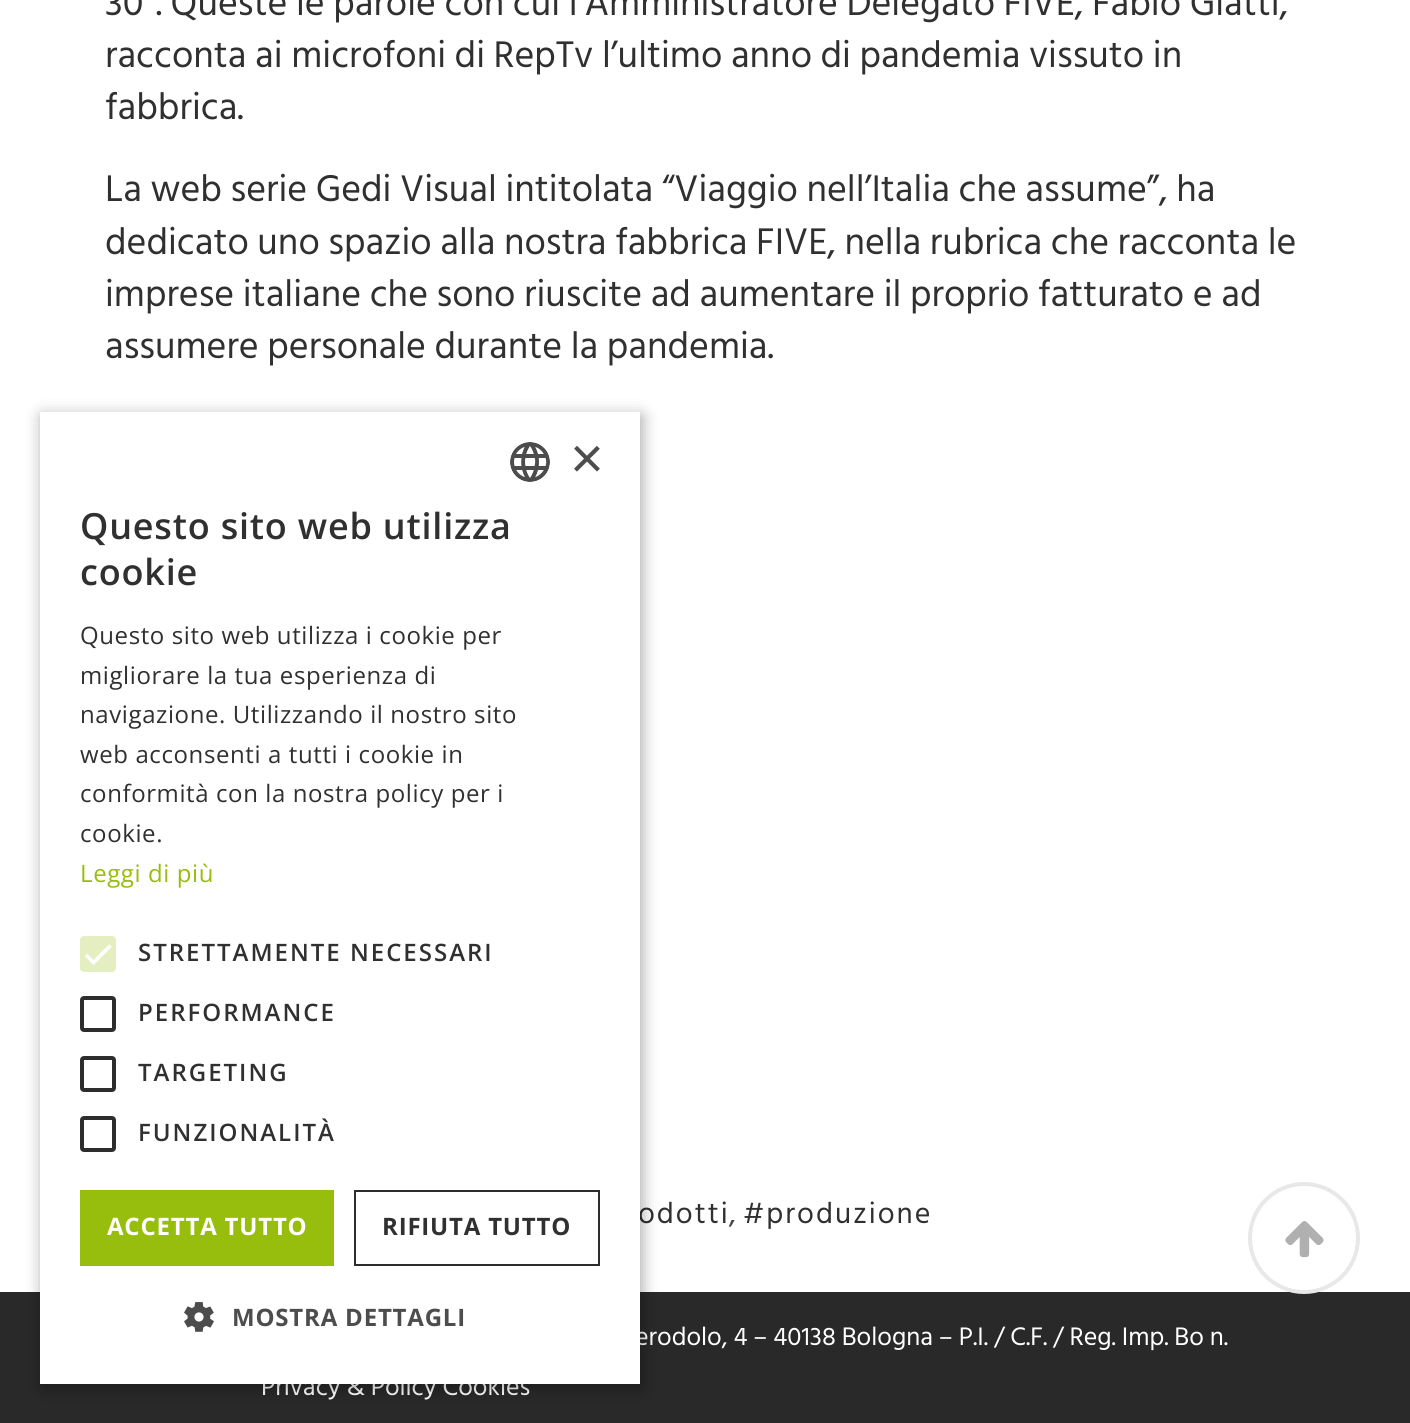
import math
import cairocffi as cairo

surface = cairo.ImageSurface(cairo.FORMAT_RGB24, 1410, 1423)
cr = cairo.Context(surface)
options = cairo.FontOptions()
options.set_hint_metrics(cairo.HINT_METRICS_OFF)
options.set_hint_style(cairo.HINT_STYLE_NONE)
cr.set_font_options(options)
cr.set_miter_limit(4)


def use_color(code):
    cr.set_source_rgb(*(v / 255 for v in bytes.fromhex(code[-6:])))


def spaced_text(x, y, s, letter, word):
    cr.move_to(x, y)
    for ch in s:
        cr.show_text(ch)
        cr.rel_move_to(letter + word * (ch == ' '), 0)


def round_rect(x, y, w, h, r):
    cr.new_sub_path()
    for i, (u, v) in enumerate([(x + w - r, y + h - r), (x + r, y + h - r), (x + r, y + r), (x + w - r, y + r)]):
        cr.arc(u, v, r, i * math.pi / 2, (i + 1) * math.pi / 2)
    cr.close_path()


def shadow(x, y, w, h, r, blur, alpha):
    cr.push_group_with_content(cairo.CONTENT_ALPHA)
    cr.set_operator(cairo.OPERATOR_SOURCE)
    for i in range(15, -16, -2):
        e = blur * i / 6
        if min(w, h) + 2 * e > 0:
            cr.set_source_rgba(0, 0, 0, alpha * math.erfc((i - 1) / 8.5) / 2)
            round_rect(x - e, y - e, w + 2 * e, h + 2 * e, max(0, min(r + e + blur * .6, min(w, h) / 2 + e)))
            cr.fill()
    cr.mask(cr.pop_group())


def picture(path, x, y, w, h):
    cr.save()
    cr.set_source_surface(cairo.ImageSurface.create_from_png(path), x, y)
    cr.rectangle(x, y, w, h)
    cr.fill()
    cr.restore()


use_color("#ffffff")
cr.paint()
cr.select_font_face("Hind Siliguri")
cr.set_font_size(38)
use_color("#303030")
cr.move_to(105, 15)
cr.show_text("30”. Queste le parole con cui l’Amministratore Delegato FIVE, Fabio Giatti,")
cr.move_to(105, 67)
cr.show_text("racconta ai microfoni di RepTv l’ultimo anno di pandemia vissuto in")
cr.move_to(105, 119)
cr.show_text("fabbrica.")
cr.move_to(105, 201)
cr.show_text("La web serie Gedi Visual intitolata “Viaggio nell’Italia che assume”, ha")
cr.move_to(105, 254)
cr.show_text("dedicato uno spazio alla nostra fabbrica FIVE, nella rubrica che racconta le")
cr.move_to(105, 306)
cr.show_text("imprese italiane che sono riuscite ad aumentare il proprio fatturato e ad")
cr.move_to(105, 358)
cr.show_text("assumere personale durante la pandemia.")
cr.set_font_size(30)
spaced_text(638, 1223, "odotti", 2, 0)
use_color("#474747")
cr.move_to(729, 1223)
cr.show_text(",")
use_color("#303030")
spaced_text(743, 1223, "#produzione", 2, 0)
use_color("#292929")
cr.rectangle(0, 1292, 1410, 131)
cr.fill()
cr.arc(1304, 1238, 54, 0, 2 * math.pi)
use_color("#e8e8e8")
cr.set_line_width(4)
cr.stroke()
picture("img1.png", 1285, 1221, 39, 37)
cr.set_font_size(26)
use_color("#ffffff")
cr.move_to(635, 1345)
cr.show_text("erodolo, 4 – 40138 Bologna – P.I. / C.F. / Reg. Imp. Bo n.")
cr.move_to(261, 1395)
cr.show_text("Privacy & Policy Cookies")
use_color("#000000")
shadow(42, 416, 600, 972, 0, 8, 0.35)
use_color("#ffffff")
cr.rectangle(40, 412, 600, 972)
cr.fill()
picture("img2.png", 510, 442, 40, 40)
cr.select_font_face("Liberation Sans")
cr.set_font_size(58)
use_color("#4d4d4d")
cr.move_to(570, 478)
cr.show_text("×")
cr.select_font_face("Open Sans SemiBold")
cr.set_font_size(36)
use_color("#303030")
spaced_text(80, 539, "Questo sito web utilizza", 0.8, 0)
spaced_text(80, 585, "cookie", 0.8, 0)
cr.select_font_face("Open Sans")
cr.set_font_size(24)
spaced_text(80, 644, "Questo sito web utilizza i cookie per", 0.6, 0)
spaced_text(80, 684, "migliorare la tua esperienza di", 0.6, 0)
spaced_text(80, 723, "navigazione. Utilizzando il nostro sito", 0.6, 0)
spaced_text(80, 763, "web acconsenti a tutti i cookie in", 0.6, 0)
spaced_text(80, 802, "conformità con la nostra policy per i", 0.6, 0)
spaced_text(80, 842, "cookie.", 0.6, 0)
use_color("#97be0d")
spaced_text(80, 882, "Leggi di più", 0.6, 0)
use_color("#e4eec0")
round_rect(80, 936, 36, 36, 4)
cr.fill()
cr.new_path()
cr.move_to(86, 955)
cr.line_to(93.5, 962.5)
cr.line_to(110.5, 945.5)
use_color("#ffffff")
cr.set_line_width(3.6)
cr.stroke()
cr.select_font_face("Open Sans SemiBold")
use_color("#303030")
spaced_text(138, 961, "STRETTAMENTE NECESSARI", 2, 0)
round_rect(82, 998, 32, 32, 2)
use_color("#2d2d2d")
cr.set_line_width(4)
cr.stroke()
use_color("#303030")
spaced_text(138, 1021, "PERFORMANCE", 2, 0)
round_rect(82, 1058, 32, 32, 2)
use_color("#2d2d2d")
cr.stroke()
use_color("#303030")
spaced_text(138, 1081, "TARGETING", 2, 0)
round_rect(82, 1118, 32, 32, 2)
use_color("#2d2d2d")
cr.stroke()
use_color("#303030")
spaced_text(138, 1141, "FUNZIONALITÀ", 2, 0)
use_color("#97be0d")
cr.rectangle(80, 1190, 254, 76)
cr.fill()
cr.select_font_face("Open Sans", cairo.FONT_SLANT_NORMAL, cairo.FONT_WEIGHT_BOLD)
use_color("#ffffff")
spaced_text(107, 1235, "ACCETTA TUTTO", 0.8, 0)
cr.rectangle(355, 1191, 244, 74)
use_color("#2d2d2d")
cr.set_line_width(2)
cr.stroke()
use_color("#303030")
spaced_text(382, 1235, "RIFIUTA TUTTO", 0.8, 0)
picture("img3.png", 184, 1302, 30, 30)
use_color("#4d4d4d")
spaced_text(232, 1326, "MOSTRA DETTAGLI", 0.8, 0)
surface.write_to_png("result.png")
